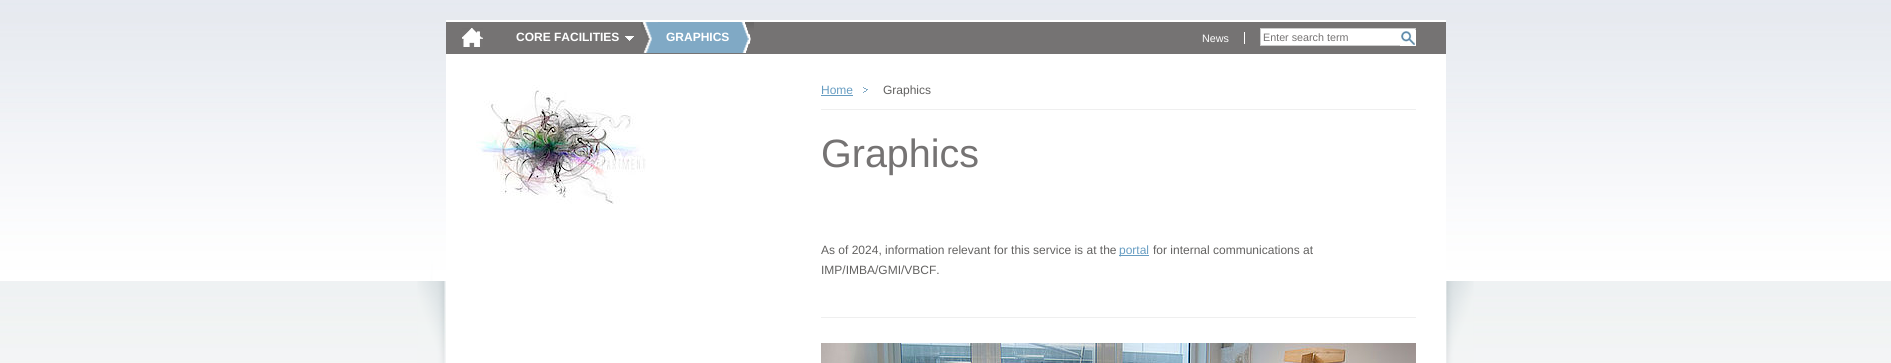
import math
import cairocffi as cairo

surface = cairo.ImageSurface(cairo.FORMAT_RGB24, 1891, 363)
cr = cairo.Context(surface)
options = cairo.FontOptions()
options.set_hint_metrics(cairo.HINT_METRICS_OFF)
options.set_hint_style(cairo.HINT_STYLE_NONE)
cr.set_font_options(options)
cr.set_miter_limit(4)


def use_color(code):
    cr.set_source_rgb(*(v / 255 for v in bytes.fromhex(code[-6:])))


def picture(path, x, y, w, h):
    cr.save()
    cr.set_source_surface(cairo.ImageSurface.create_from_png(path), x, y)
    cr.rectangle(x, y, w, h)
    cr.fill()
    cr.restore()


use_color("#ffffff")
cr.paint()
picture("img1.png", 0, 0, 1891, 363)
use_color("#ffffff")
cr.rectangle(446, 54, 1000, 309)
cr.fill()
use_color("#757373")
cr.rectangle(446, 22, 1000, 32)
cr.fill()
use_color("#ffffff")
cr.rectangle(446, 20, 1000, 2)
cr.fill()
picture("img2.png", 462, 28, 21, 19)
picture("img3.png", 625, 36, 9, 5)
cr.select_font_face("Liberation Sans", cairo.FONT_SLANT_NORMAL, cairo.FONT_WEIGHT_BOLD)
cr.set_font_size(12)
cr.move_to(516, 41)
cr.show_text("CORE FACILITIES")
use_color("#80a9c5")
cr.rectangle(658, 22, 83, 31)
cr.fill()
picture("img4.png", 641, 22, 17, 31)
picture("img5.png", 741, 22, 13, 31)
use_color("#ffffff")
cr.move_to(666, 41)
cr.show_text("GRAPHICS")
cr.rectangle(1244, 32, 1, 12)
cr.fill()
cr.select_font_face("Liberation Sans")
cr.set_font_size(10.75)
cr.move_to(1202, 42)
cr.show_text("News")
cr.rectangle(1260.5, 28.5, 155, 17)
cr.fill_preserve()
use_color("#cccccc")
cr.set_line_width(1)
cr.stroke()
use_color("#757373")
cr.move_to(1263, 41)
cr.show_text("Enter search term")
picture("img6.png", 1400, 30, 16, 16)
picture("img7.png", 476, 85, 170, 119)
use_color("#efefef")
cr.rectangle(821, 109, 595, 1)
cr.fill()
picture("img8.png", 863, 87, 5, 6)
cr.set_font_size(12)
use_color("#679dc2")
cr.move_to(821, 94)
cr.show_text("Home")
cr.rectangle(821, 95, 32, 1)
cr.fill()
use_color("#626160")
cr.move_to(883, 94)
cr.show_text("Graphics")
cr.set_font_size(39.5)
use_color("#757373")
cr.move_to(821, 167)
cr.show_text("Graphics")
use_color("#efefef")
cr.rectangle(821, 317, 595, 1)
cr.fill()
cr.set_font_size(12)
use_color("#626160")
cr.move_to(821, 254)
cr.show_text("As of 2024, information relevant for this service is at the")
use_color("#679dc2")
cr.rectangle(1119, 255, 30, 1)
cr.fill()
cr.move_to(1119, 254)
cr.show_text("portal")
use_color("#626160")
cr.move_to(1153, 254)
cr.show_text("for internal communications at")
cr.move_to(821, 274)
cr.show_text("IMP/IMBA/GMI/VBCF.")
picture("img9.png", 821, 343, 595, 20)
surface.write_to_png("result.png")
